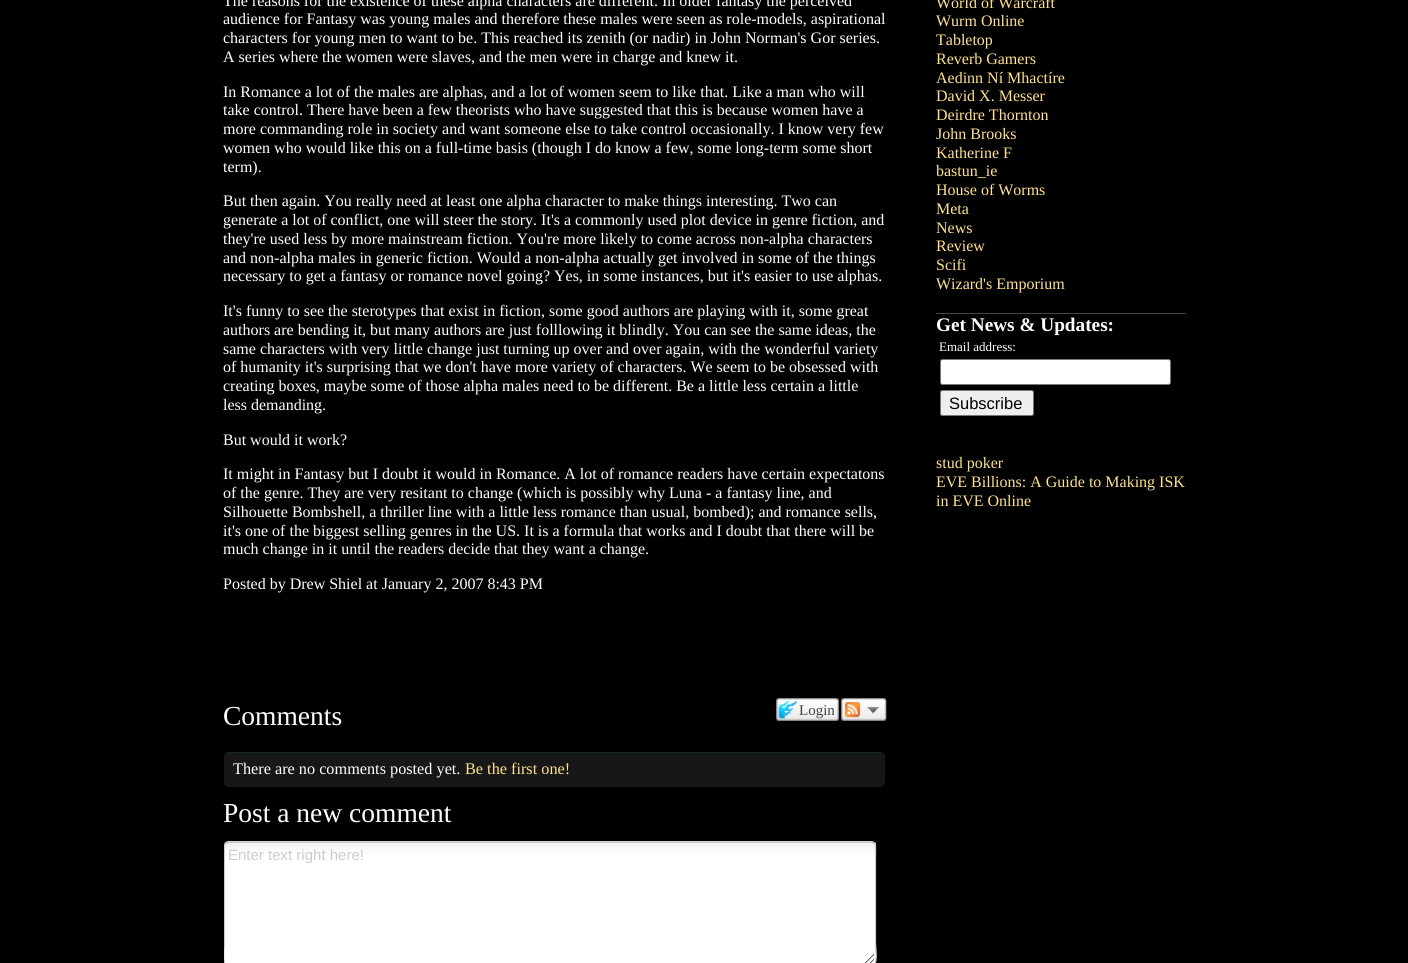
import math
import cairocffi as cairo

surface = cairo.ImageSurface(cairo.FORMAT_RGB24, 1408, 963)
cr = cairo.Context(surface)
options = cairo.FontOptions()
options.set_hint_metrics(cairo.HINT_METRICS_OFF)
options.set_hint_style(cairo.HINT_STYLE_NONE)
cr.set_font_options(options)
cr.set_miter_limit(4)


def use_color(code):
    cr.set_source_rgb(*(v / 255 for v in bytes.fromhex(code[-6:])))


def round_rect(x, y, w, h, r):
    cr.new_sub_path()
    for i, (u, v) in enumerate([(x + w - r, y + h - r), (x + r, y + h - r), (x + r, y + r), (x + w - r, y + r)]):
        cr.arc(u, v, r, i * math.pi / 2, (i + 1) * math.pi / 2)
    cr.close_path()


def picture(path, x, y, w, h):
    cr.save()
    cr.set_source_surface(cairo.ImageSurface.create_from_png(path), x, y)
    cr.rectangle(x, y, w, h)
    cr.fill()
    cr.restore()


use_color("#000000")
cr.paint()
cr.select_font_face("Liberation Serif")
cr.set_font_size(16)
use_color("#ffffff")
cr.move_to(223, 6)
cr.show_text("The reasons for the existence of these alpha characters are different. In older fantasy the perceived")
cr.move_to(223, 24)
cr.show_text("audience for Fantasy was young males and therefore these males were seen as role-models, aspirational")
cr.move_to(223, 43)
cr.show_text("characters for young men to want to be. This reached its zenith (or nadir) in John Norman's Gor series.")
cr.move_to(223, 62)
cr.show_text("A series where the women were slaves, and the men were in charge and knew it.")
cr.move_to(223, 97)
cr.show_text("In Romance a lot of the males are alphas, and a lot of women seem to like that. Like a man who will")
cr.move_to(223, 115)
cr.show_text("take control. There have been a few theorists who have suggested that this is because women have a")
cr.move_to(223, 134)
cr.show_text("more commanding role in society and want someone else to take control occasionally. I know very few")
cr.move_to(223, 153)
cr.show_text("women who would like this on a full-time basis (though I do know a few, some long-term some short")
cr.move_to(223, 172)
cr.show_text("term).")
cr.move_to(223, 206)
cr.show_text("But then again. You really need at least one alpha character to make things interesting. Two can")
cr.move_to(223, 225)
cr.show_text("generate a lot of conflict, one will steer the story. It's a commonly used plot device in genre fiction, and")
cr.move_to(223, 244)
cr.show_text("they're used less by more mainstream fiction. You're more likely to come across non-alpha characters")
cr.move_to(223, 263)
cr.show_text("and non-alpha males in generic fiction. Would a non-alpha actually get involved in some of the things")
cr.move_to(223, 281)
cr.show_text("necessary to get a fantasy or romance novel going? Yes, in some instances, but it's easier to use alphas.")
cr.move_to(223, 316)
cr.show_text("It's funny to see the sterotypes that exist in fiction, some good authors are playing with it, some great")
cr.move_to(223, 335)
cr.show_text("authors are bending it, but many authors are just folllowing it blindly. You can see the same ideas, the")
cr.move_to(223, 354)
cr.show_text("same characters with very little change just turning up over and over again, with the wonderful variety")
cr.move_to(223, 372)
cr.show_text("of humanity it's surprising that we don't have more variety of characters. We seem to be obsessed with")
cr.move_to(223, 391)
cr.show_text("creating boxes, maybe some of those alpha males need to be different. Be a little less certain a little")
cr.move_to(223, 410)
cr.show_text("less demanding.")
cr.move_to(223, 445)
cr.show_text("But would it work?")
cr.move_to(223, 479)
cr.show_text("It might in Fantasy but I doubt it would in Romance. A lot of romance readers have certain expectatons")
cr.move_to(223, 498)
cr.show_text("of the genre. They are very resitant to change (which is possibly why Luna - a fantasy line, and")
cr.move_to(223, 517)
cr.show_text("Silhouette Bombshell, a thriller line with a little less romance than usual, bombed); and romance sells,")
cr.move_to(223, 536)
cr.show_text("it's one of the biggest selling genres in the US. It is a formula that works and I doubt that there will be")
cr.move_to(223, 554)
cr.show_text("much change in it until the readers decide that they want a change.")
cr.move_to(223, 589)
cr.show_text("Posted by Drew Shiel at January 2, 2007 8:43 PM")
cr.set_font_size(27.5)
cr.move_to(223, 725)
cr.show_text("Comments")
picture("img1.png", 776, 698, 59, 23)
cr.set_font_size(15)
use_color("#444444")
cr.move_to(799, 715)
cr.show_text("Login")
picture("img2.png", 835, 698, 4, 23)
picture("img3.png", 841, 698, 46, 23)
picture("img4.png", 224, 752, 661, 35)
cr.set_font_size(16.25)
use_color("#ffffff")
cr.move_to(233, 774)
cr.show_text("There are no comments posted yet.")
use_color("#fee191")
cr.move_to(465, 774)
cr.show_text("Be the first one!")
cr.set_font_size(27.5)
use_color("#ffffff")
cr.move_to(223, 822)
cr.show_text("Post a new comment")
round_rect(224, 841, 652, 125, 5)
cr.fill()
picture("img5.png", 224, 841, 653, 122)
cr.new_path()
cr.move_to(225.5, 843)
cr.line_to(229, 842)
cr.line_to(871, 842)
cr.line_to(874.5, 843)
use_color("#b0b0b0")
cr.set_line_width(1.2)
cr.stroke()
cr.save()
cr.rectangle(224, 841, 662, 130)
cr.clip()
cr.new_path()
cr.move_to(874.5, 843)
cr.line_to(875.5, 846)
cr.line_to(875.5, 942)
cr.curve_to(875.5, 950.5, 879, 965.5, 871, 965.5)
cr.line_to(229, 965.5)
cr.curve_to(221, 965.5, 224.5, 950.5, 224.5, 942)
cr.line_to(224.5, 846)
cr.line_to(225.5, 843)
use_color("#cccccc")
cr.stroke()
cr.restore()
cr.select_font_face("Liberation Sans")
cr.set_font_size(15)
use_color("#cccccc")
cr.move_to(228, 860)
cr.show_text("Enter text right here!")
cr.select_font_face("Liberation Serif")
cr.set_font_size(16)
use_color("#fee191")
cr.move_to(936, 8)
cr.show_text("World of Warcraft")
cr.move_to(936, 26)
cr.show_text("Wurm Online")
cr.move_to(936, 45)
cr.show_text("Tabletop")
cr.move_to(936, 64)
cr.show_text("Reverb Gamers")
cr.move_to(936, 83)
cr.show_text("Aedinn Ní Mhactíre")
cr.move_to(936, 101)
cr.show_text("David X. Messer")
cr.move_to(936, 120)
cr.show_text("Deirdre Thornton")
cr.move_to(936, 139)
cr.show_text("John Brooks")
cr.move_to(936, 158)
cr.show_text("Katherine F")
cr.move_to(936, 176)
cr.show_text("bastun_ie")
cr.move_to(936, 195)
cr.show_text("House of Worms")
cr.move_to(936, 214)
cr.show_text("Meta")
cr.move_to(936, 233)
cr.show_text("News")
cr.move_to(936, 251)
cr.show_text("Review")
cr.move_to(936, 270)
cr.show_text("Scifi")
cr.move_to(936, 289)
cr.show_text("Wizard's Emporium")
use_color("#444444")
cr.rectangle(936, 313, 250, 1)
cr.fill()
cr.select_font_face("Liberation Serif", cairo.FONT_SLANT_NORMAL, cairo.FONT_WEIGHT_BOLD)
cr.set_font_size(19.25)
use_color("#ffffff")
cr.move_to(936, 331)
cr.show_text("Get News & Updates:")
cr.select_font_face("Liberation Serif")
cr.set_font_size(13)
cr.move_to(939, 351)
cr.show_text("Email address:")
round_rect(940.5, 359.5, 230, 25, 2)
cr.fill_preserve()
use_color("#767676")
cr.set_line_width(1)
cr.stroke()
use_color("#efefef")
round_rect(940.5, 390.5, 93, 25, 2)
cr.fill_preserve()
use_color("#767676")
cr.stroke()
cr.select_font_face("Liberation Sans")
cr.set_font_size(16.5)
use_color("#000000")
cr.move_to(949, 409)
cr.show_text("Subscribe")
cr.select_font_face("Liberation Serif")
cr.set_font_size(16)
use_color("#fee191")
cr.move_to(936, 468)
cr.show_text("stud poker")
cr.move_to(936, 487)
cr.show_text("EVE Billions: A Guide to Making ISK")
cr.move_to(936, 506)
cr.show_text("in EVE Online")
surface.write_to_png("result.png")
